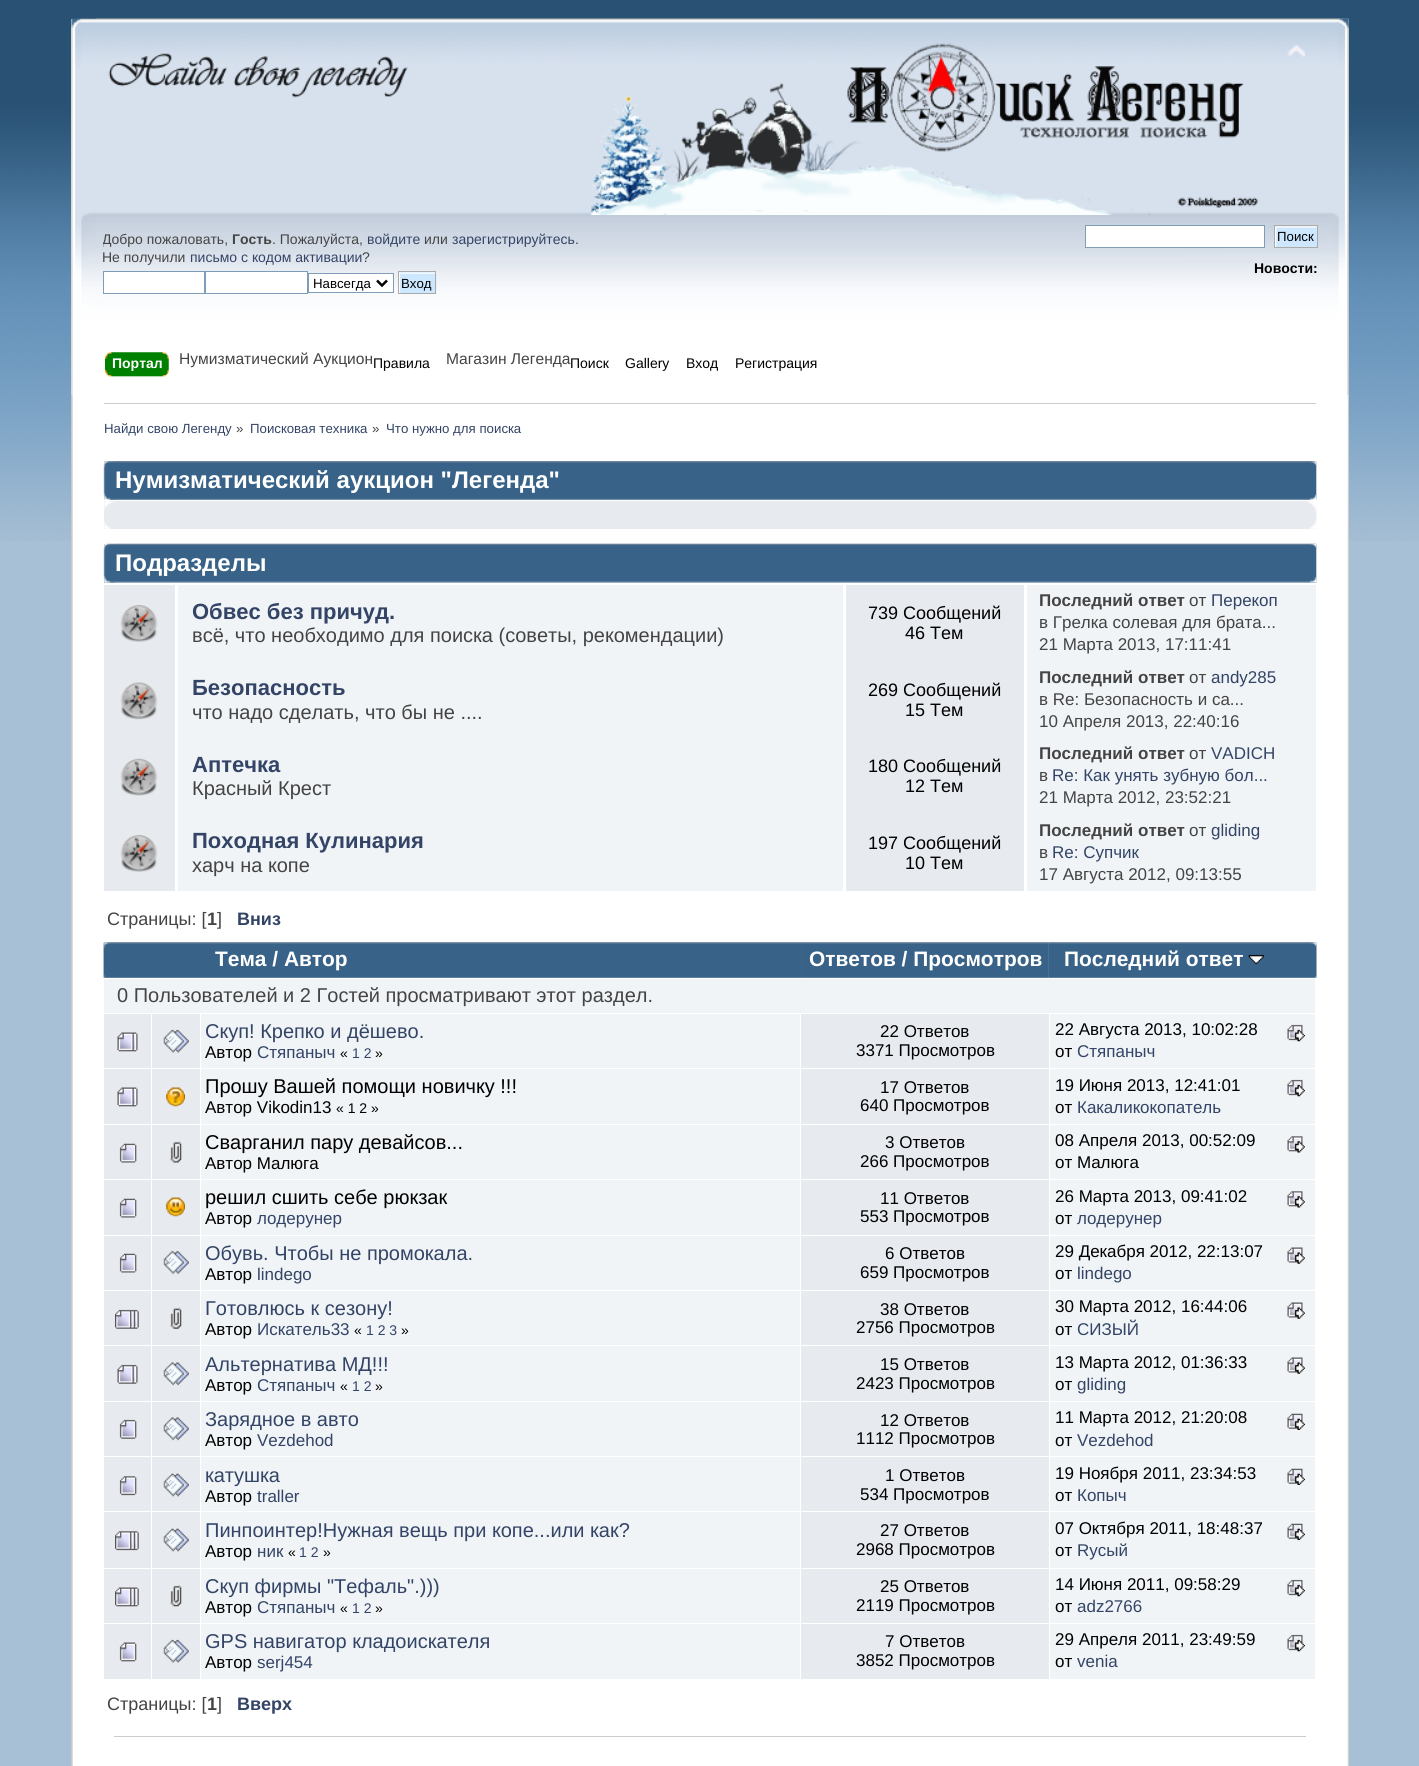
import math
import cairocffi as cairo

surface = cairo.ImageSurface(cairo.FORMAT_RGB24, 1419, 1766)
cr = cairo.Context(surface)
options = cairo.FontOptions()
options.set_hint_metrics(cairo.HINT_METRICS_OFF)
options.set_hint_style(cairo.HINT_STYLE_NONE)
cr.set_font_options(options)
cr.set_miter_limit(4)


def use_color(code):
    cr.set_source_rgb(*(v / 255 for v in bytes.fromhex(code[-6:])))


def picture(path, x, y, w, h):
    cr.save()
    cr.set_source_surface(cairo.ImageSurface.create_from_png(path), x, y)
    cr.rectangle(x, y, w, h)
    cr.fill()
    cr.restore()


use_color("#a8c0d5")
cr.paint()
picture("img1.png", 0, 0, 1419, 541)
use_color("#fefefe")
cr.rectangle(71, 19, 1278, 376)
cr.fill()
picture("img2.png", 71, 18, 1278, 377)
picture("img3.png", 96, 18, 1253, 377)
picture("img4.png", 591, 43, 667, 172)
picture("img5.png", 1287, 44, 19, 15)
picture("img6.png", 108, 53, 300, 45)
cr.save()
cr.rectangle(103, 225, 607, 79)
cr.clip()
cr.select_font_face("Liberation Sans")
cr.set_font_size(14)
use_color("#444444")
cr.move_to(102, 244)
cr.show_text("Добро пожаловать,")
cr.restore()
cr.select_font_face("Liberation Sans", cairo.FONT_SLANT_NORMAL, cairo.FONT_WEIGHT_BOLD)
cr.set_font_size(14)
use_color("#444444")
cr.move_to(232, 244)
cr.show_text("Гость")
cr.select_font_face("Liberation Sans")
cr.move_to(272, 244)
cr.show_text(". Пожалуйста,")
use_color("#334466")
cr.move_to(367, 244)
cr.show_text("войдите")
use_color("#444444")
cr.move_to(424, 244)
cr.show_text("или")
use_color("#334466")
cr.move_to(452, 244)
cr.show_text("зарегистрируйтесь")
use_color("#444444")
cr.move_to(575, 244)
cr.show_text(".")
cr.move_to(102, 262)
cr.show_text("Не получили")
use_color("#334466")
cr.move_to(190, 262)
cr.show_text("письмо с кодом активации")
use_color("#444444")
cr.move_to(362, 262)
cr.show_text("?")
use_color("#ffffff")
cr.rectangle(103.5, 271.5, 101, 22)
cr.fill_preserve()
use_color("#7f9db9")
cr.set_line_width(1)
cr.stroke()
use_color("#ffffff")
cr.rectangle(205.5, 271.5, 102, 22)
cr.fill_preserve()
use_color("#7f9db9")
cr.stroke()
use_color("#ffffff")
cr.rectangle(308.5, 273.5, 85, 19)
cr.fill_preserve()
use_color("#7f9db9")
cr.stroke()
cr.new_path()
cr.move_to(377, 280.5)
cr.line_to(382, 285.5)
cr.line_to(387, 280.5)
use_color("#000000")
cr.set_line_width(2.5)
cr.stroke()
cr.set_font_size(13.25)
cr.move_to(313, 288)
cr.show_text("Навсегда")
use_color("#cde7ff")
cr.rectangle(399, 272, 36, 1)
cr.fill()
picture("img7.png", 399, 272, 38, 22)
cr.rectangle(398.5, 271.5, 37, 22)
use_color("#aaaaaa")
cr.set_line_width(1)
cr.stroke()
use_color("#000000")
cr.move_to(401, 288)
cr.show_text("Вход")
use_color("#ffffff")
cr.rectangle(1085.5, 225.5, 179, 22)
cr.fill_preserve()
use_color("#7f9db9")
cr.stroke()
picture("img8.png", 1275, 226, 42, 21)
cr.rectangle(1274.5, 225.5, 43, 22)
use_color("#aaaaaa")
cr.stroke()
use_color("#000000")
cr.move_to(1277, 241)
cr.show_text("Поиск")
cr.select_font_face("Liberation Sans", cairo.FONT_SLANT_NORMAL, cairo.FONT_WEIGHT_BOLD)
cr.set_font_size(14)
cr.move_to(1254, 273)
cr.show_text("Новости:")
picture("img9.png", 111, 352, 58, 25)
picture("img10.png", 105, 352, 58, 25)
use_color("#ffffff")
cr.move_to(112, 368)
cr.show_text("Портал")
cr.select_font_face("Liberation Sans")
cr.set_font_size(15.6)
use_color("#444444")
cr.move_to(179, 364)
cr.show_text("Нумизматический Аукцион")
cr.set_font_size(14)
use_color("#000000")
cr.move_to(373, 368)
cr.show_text("Правила")
cr.set_font_size(15.6)
use_color("#444444")
cr.move_to(446, 364)
cr.show_text("Магазин Легенда")
cr.set_font_size(14)
use_color("#000000")
cr.move_to(570, 368)
cr.show_text("Поиск")
cr.move_to(625, 368)
cr.show_text("Gallery")
cr.move_to(686, 368)
cr.show_text("Вход")
cr.move_to(735, 368)
cr.show_text("Регистрация")
use_color("#ffffff")
cr.rectangle(71, 395, 1278, 1371)
cr.fill()
picture("img11.png", 71, 395, 2, 1371)
picture("img12.png", 1347, 395, 2, 1371)
use_color("#cccccc")
cr.rectangle(104, 403, 1212, 1)
cr.fill()
cr.set_font_size(13.25)
use_color("#334466")
cr.move_to(104, 433)
cr.show_text("Найди свою Легенду")
use_color("#444444")
cr.move_to(236, 433)
cr.show_text("»")
use_color("#334466")
cr.move_to(250, 433)
cr.show_text("Поисковая техника")
use_color("#444444")
cr.move_to(372, 433)
cr.show_text("»")
use_color("#334466")
cr.move_to(386, 433)
cr.show_text("Что нужно для поиска")
use_color("#99abbf")
cr.rectangle(104, 461, 1212, 39)
cr.fill()
picture("img13.png", 103, 461, 1214, 39)
picture("img14.png", 115, 461, 1202, 39)
cr.select_font_face("Liberation Sans", cairo.FONT_SLANT_NORMAL, cairo.FONT_WEIGHT_BOLD)
cr.set_font_size(24)
use_color("#ffffff")
cr.move_to(115, 488)
cr.show_text("Нумизматический аукцион \"Легенда\"")
use_color("#e7eaef")
cr.rectangle(104, 501, 1212, 28)
cr.fill()
picture("img15.png", 104, 501, 1213, 14)
picture("img16.png", 1306, 501, 11, 14)
picture("img17.png", 104, 515, 1213, 14)
picture("img18.png", 1310, 515, 7, 14)
use_color("#99abbf")
cr.rectangle(104, 544, 1212, 39)
cr.fill()
picture("img19.png", 103, 543, 1214, 40)
picture("img20.png", 115, 543, 1202, 40)
use_color("#ffffff")
cr.move_to(115, 571)
cr.show_text("Подразделы")
use_color("#f0f4f7")
cr.rectangle(178, 585, 1138, 306)
cr.fill()
use_color("#e7eaef")
cr.rectangle(104, 585, 71, 306)
cr.fill()
picture("img21.png", 120, 604, 38, 38)
cr.set_font_size(22)
use_color("#334466")
cr.move_to(192, 619)
cr.show_text("Обвес без причуд.")
cr.select_font_face("Liberation Sans")
cr.set_font_size(20)
use_color("#444444")
cr.move_to(192, 642)
cr.show_text("всё, что необходимо для поиска (советы, рекомендации)")
use_color("#e7eaef")
cr.rectangle(846, 585, 178, 306)
cr.fill()
cr.set_font_size(18)
use_color("#000000")
cr.move_to(868, 619)
cr.show_text("739 Сообщений")
cr.move_to(905, 639)
cr.show_text("46 Тем")
cr.select_font_face("Liberation Sans", cairo.FONT_SLANT_NORMAL, cairo.FONT_WEIGHT_BOLD)
cr.set_font_size(17)
use_color("#444444")
cr.move_to(1039, 606)
cr.show_text("Последний ответ")
cr.select_font_face("Liberation Sans")
cr.move_to(1189, 606)
cr.show_text("от")
use_color("#334466")
cr.move_to(1211, 606)
cr.show_text("Перекоп")
use_color("#444444")
cr.move_to(1039, 628)
cr.show_text("в Грелка солевая для брата...")
cr.move_to(1039, 650)
cr.show_text("21 Марта 2013, 17:11:41")
picture("img22.png", 120, 682, 38, 38)
cr.select_font_face("Liberation Sans", cairo.FONT_SLANT_NORMAL, cairo.FONT_WEIGHT_BOLD)
cr.set_font_size(22)
use_color("#334466")
cr.move_to(192, 695)
cr.show_text("Безопасность")
cr.select_font_face("Liberation Sans")
cr.set_font_size(20)
use_color("#444444")
cr.move_to(192, 719)
cr.show_text("что надо сделать, что бы не ....")
cr.set_font_size(18)
use_color("#000000")
cr.move_to(868, 696)
cr.show_text("269 Сообщений")
cr.move_to(905, 716)
cr.show_text("15 Тем")
cr.select_font_face("Liberation Sans", cairo.FONT_SLANT_NORMAL, cairo.FONT_WEIGHT_BOLD)
cr.set_font_size(17)
use_color("#444444")
cr.move_to(1039, 683)
cr.show_text("Последний ответ")
cr.select_font_face("Liberation Sans")
cr.move_to(1189, 683)
cr.show_text("от")
use_color("#334466")
cr.move_to(1211, 683)
cr.show_text("andy285")
use_color("#444444")
cr.move_to(1039, 705)
cr.show_text("в Re: Безопасность и са...")
cr.move_to(1039, 727)
cr.show_text("10 Апреля 2013, 22:40:16")
picture("img23.png", 120, 758, 38, 38)
cr.select_font_face("Liberation Sans", cairo.FONT_SLANT_NORMAL, cairo.FONT_WEIGHT_BOLD)
cr.set_font_size(22)
use_color("#334466")
cr.move_to(192, 772)
cr.show_text("Аптечка")
cr.select_font_face("Liberation Sans")
cr.set_font_size(20)
use_color("#444444")
cr.move_to(192, 795)
cr.show_text("Красный Крест")
cr.set_font_size(18)
use_color("#000000")
cr.move_to(868, 772)
cr.show_text("180 Сообщений")
cr.move_to(905, 792)
cr.show_text("12 Тем")
cr.select_font_face("Liberation Sans", cairo.FONT_SLANT_NORMAL, cairo.FONT_WEIGHT_BOLD)
cr.set_font_size(17)
use_color("#444444")
cr.move_to(1039, 759)
cr.show_text("Последний ответ")
cr.select_font_face("Liberation Sans")
cr.move_to(1189, 759)
cr.show_text("от")
use_color("#334466")
cr.move_to(1211, 759)
cr.show_text("VADICH")
use_color("#444444")
cr.move_to(1039, 781)
cr.show_text("в")
use_color("#334466")
cr.move_to(1052, 781)
cr.show_text("Re: Как унять зубную бол...")
use_color("#444444")
cr.move_to(1039, 803)
cr.show_text("21 Марта 2012, 23:52:21")
picture("img21.png", 120, 834, 38, 38)
use_color("#ffffff")
cr.rectangle(843, 584, 3, 309)
cr.fill()
cr.select_font_face("Liberation Sans", cairo.FONT_SLANT_NORMAL, cairo.FONT_WEIGHT_BOLD)
cr.set_font_size(22)
use_color("#334466")
cr.move_to(192, 848)
cr.show_text("Походная Кулинария")
cr.select_font_face("Liberation Sans")
cr.set_font_size(20)
use_color("#444444")
cr.move_to(192, 872)
cr.show_text("харч на копе")
use_color("#ffffff")
cr.rectangle(1024, 584, 3, 309)
cr.fill()
cr.set_font_size(18)
use_color("#000000")
cr.move_to(868, 849)
cr.show_text("197 Сообщений")
cr.move_to(905, 869)
cr.show_text("10 Тем")
cr.select_font_face("Liberation Sans", cairo.FONT_SLANT_NORMAL, cairo.FONT_WEIGHT_BOLD)
cr.set_font_size(17)
use_color("#444444")
cr.move_to(1039, 836)
cr.show_text("Последний ответ")
cr.select_font_face("Liberation Sans")
cr.move_to(1189, 836)
cr.show_text("от")
use_color("#334466")
cr.move_to(1211, 836)
cr.show_text("gliding")
use_color("#444444")
cr.move_to(1039, 858)
cr.show_text("в")
use_color("#334466")
cr.move_to(1052, 858)
cr.show_text("Re: Супчик")
use_color("#444444")
cr.move_to(1039, 880)
cr.show_text("17 Августа 2012, 09:13:55")
cr.set_font_size(18)
cr.move_to(107, 925)
cr.show_text("Страницы: [")
cr.select_font_face("Liberation Sans", cairo.FONT_SLANT_NORMAL, cairo.FONT_WEIGHT_BOLD)
cr.move_to(207, 925)
cr.show_text("1")
cr.select_font_face("Liberation Sans")
cr.move_to(217, 925)
cr.show_text("]")
cr.select_font_face("Liberation Sans", cairo.FONT_SLANT_NORMAL, cairo.FONT_WEIGHT_BOLD)
use_color("#334466")
cr.move_to(237, 925)
cr.show_text("Вниз")
picture("img24.png", 103, 942, 97, 36)
picture("img25.png", 200, 942, 602, 36)
cr.set_font_size(20.9)
use_color("#ffffff")
cr.move_to(215, 966)
cr.show_text("Тема / Автор")
picture("img26.png", 801, 942, 248, 36)
cr.move_to(809, 966)
cr.show_text("Ответов / Просмотров")
picture("img27.png", 1048, 942, 269, 36)
cr.move_to(1064, 966)
cr.show_text("Последний ответ")
picture("img28.png", 1248, 954, 16, 10)
use_color("#f0f4f7")
cr.rectangle(104, 979, 1211, 34)
cr.fill()
cr.select_font_face("Liberation Sans")
cr.set_font_size(20)
use_color("#444444")
cr.move_to(117, 1002)
cr.show_text("0 Пользователей и 2 Гостей просматривают этот раздел.")
use_color("#e7eaef")
cr.rectangle(104, 1014, 47, 54)
cr.fill()
picture("img29.png", 117, 1032, 21, 20)
cr.rectangle(152, 1014, 48, 54)
cr.fill()
picture("img30.png", 163, 1029, 26, 24)
use_color("#f0f4f7")
cr.rectangle(201, 1014, 599, 54)
cr.fill()
use_color("#334466")
cr.move_to(205, 1038)
cr.show_text("Скуп! Крепко и дёшево.")
cr.set_font_size(17)
use_color("#000000")
cr.move_to(205, 1058)
cr.show_text("Автор")
use_color("#334466")
cr.move_to(257, 1058)
cr.show_text("Стяпаныч")
cr.set_font_size(14)
use_color("#000000")
cr.move_to(340, 1058)
cr.show_text("«")
use_color("#334466")
cr.move_to(352, 1058)
cr.show_text("1 2")
use_color("#000000")
cr.move_to(375, 1058)
cr.show_text("»")
use_color("#e7eaef")
cr.rectangle(801, 1014, 248, 54)
cr.fill()
cr.set_font_size(17)
use_color("#000000")
cr.move_to(880, 1037)
cr.show_text("22 Ответов")
cr.move_to(856, 1056)
cr.show_text("3371 Просмотров")
use_color("#f0f4f7")
cr.rectangle(1050, 1014, 265, 54)
cr.fill()
use_color("#000000")
cr.move_to(1055, 1035)
cr.show_text("22 Августа 2013, 10:02:28")
picture("img31.png", 1287, 1024, 18, 18)
cr.move_to(1055, 1057)
cr.show_text("от")
use_color("#334466")
cr.move_to(1077, 1057)
cr.show_text("Стяпаныч")
use_color("#e7eaef")
cr.rectangle(104, 1069, 47, 55)
cr.fill()
picture("img29.png", 117, 1087, 21, 20)
cr.rectangle(152, 1069, 48, 55)
cr.fill()
picture("img32.png", 166, 1087, 19, 20)
use_color("#f0f4f7")
cr.rectangle(201, 1069, 599, 55)
cr.fill()
cr.set_font_size(20)
use_color("#000000")
cr.move_to(205, 1093)
cr.show_text("Прошу Вашей помощи новичку !!!")
cr.set_font_size(17)
cr.move_to(205, 1113)
cr.show_text("Автор Vikodin13")
cr.set_font_size(14)
cr.move_to(336, 1113)
cr.show_text("« 1 2 »")
use_color("#e7eaef")
cr.rectangle(801, 1069, 248, 55)
cr.fill()
cr.set_font_size(17)
use_color("#000000")
cr.move_to(880, 1093)
cr.show_text("17 Ответов")
cr.move_to(860, 1111)
cr.show_text("640 Просмотров")
use_color("#f0f4f7")
cr.rectangle(1050, 1069, 265, 55)
cr.fill()
use_color("#000000")
cr.move_to(1055, 1091)
cr.show_text("19 Июня 2013, 12:41:01")
picture("img33.png", 1287, 1079, 18, 18)
cr.move_to(1055, 1113)
cr.show_text("от")
use_color("#334466")
cr.move_to(1077, 1113)
cr.show_text("Какаликокопатель")
use_color("#e7eaef")
cr.rectangle(104, 1125, 47, 54)
cr.fill()
picture("img34.png", 119, 1143, 18, 20)
cr.rectangle(152, 1125, 48, 54)
cr.fill()
picture("img35.png", 170, 1141, 12, 22)
use_color("#f0f4f7")
cr.rectangle(201, 1125, 599, 54)
cr.fill()
cr.set_font_size(20)
use_color("#000000")
cr.move_to(205, 1149)
cr.show_text("Сварганил пару девайсов...")
cr.set_font_size(17)
cr.move_to(205, 1169)
cr.show_text("Автор Малюга")
use_color("#e7eaef")
cr.rectangle(801, 1125, 248, 54)
cr.fill()
use_color("#000000")
cr.move_to(885, 1148)
cr.show_text("3 Ответов")
cr.move_to(860, 1167)
cr.show_text("266 Просмотров")
use_color("#f0f4f7")
cr.rectangle(1050, 1125, 265, 54)
cr.fill()
use_color("#000000")
cr.move_to(1055, 1146)
cr.show_text("08 Апреля 2013, 00:52:09")
picture("img36.png", 1287, 1136, 18, 17)
cr.move_to(1055, 1168)
cr.show_text("от Малюга")
use_color("#e7eaef")
cr.rectangle(104, 1180, 47, 55)
cr.fill()
picture("img34.png", 119, 1198, 18, 20)
cr.rectangle(152, 1180, 48, 55)
cr.fill()
picture("img37.png", 166, 1197, 19, 20)
use_color("#f0f4f7")
cr.rectangle(201, 1180, 599, 55)
cr.fill()
cr.set_font_size(20)
use_color("#000000")
cr.move_to(205, 1204)
cr.show_text("решил сшить себе рюкзак")
cr.set_font_size(17)
cr.move_to(205, 1224)
cr.show_text("Автор")
use_color("#334466")
cr.move_to(257, 1224)
cr.show_text("лодерунер")
use_color("#e7eaef")
cr.rectangle(801, 1180, 248, 55)
cr.fill()
use_color("#000000")
cr.move_to(880, 1204)
cr.show_text("11 Ответов")
cr.move_to(860, 1222)
cr.show_text("553 Просмотров")
use_color("#f0f4f7")
cr.rectangle(1050, 1180, 265, 55)
cr.fill()
use_color("#000000")
cr.move_to(1055, 1202)
cr.show_text("26 Марта 2013, 09:41:02")
picture("img36.png", 1287, 1191, 18, 17)
cr.move_to(1055, 1224)
cr.show_text("от")
use_color("#334466")
cr.move_to(1077, 1224)
cr.show_text("лодерунер")
use_color("#e7eaef")
cr.rectangle(104, 1236, 47, 54)
cr.fill()
picture("img34.png", 119, 1253, 18, 20)
cr.rectangle(152, 1236, 48, 54)
cr.fill()
picture("img38.png", 163, 1251, 26, 23)
use_color("#f0f4f7")
cr.rectangle(201, 1236, 599, 54)
cr.fill()
cr.set_font_size(20)
use_color("#334466")
cr.move_to(205, 1260)
cr.show_text("Обувь. Чтобы не промокала.")
cr.set_font_size(17)
use_color("#000000")
cr.move_to(205, 1280)
cr.show_text("Автор")
use_color("#334466")
cr.move_to(257, 1280)
cr.show_text("lindego")
use_color("#e7eaef")
cr.rectangle(801, 1236, 248, 54)
cr.fill()
use_color("#000000")
cr.move_to(885, 1259)
cr.show_text("6 Ответов")
cr.move_to(860, 1278)
cr.show_text("659 Просмотров")
use_color("#f0f4f7")
cr.rectangle(1050, 1236, 265, 54)
cr.fill()
use_color("#000000")
cr.move_to(1055, 1257)
cr.show_text("29 Декабря 2012, 22:13:07")
picture("img39.png", 1287, 1247, 18, 17)
cr.move_to(1055, 1279)
cr.show_text("от")
use_color("#334466")
cr.move_to(1077, 1279)
cr.show_text("lindego")
use_color("#e7eaef")
cr.rectangle(104, 1291, 47, 54)
cr.fill()
picture("img40.png", 115, 1309, 24, 20)
cr.rectangle(152, 1291, 48, 54)
cr.fill()
picture("img41.png", 170, 1307, 12, 22)
use_color("#f0f4f7")
cr.rectangle(201, 1291, 599, 54)
cr.fill()
cr.set_font_size(20)
use_color("#334466")
cr.move_to(205, 1315)
cr.show_text("Готовлюсь к сезону!")
cr.set_font_size(17)
use_color("#000000")
cr.move_to(205, 1335)
cr.show_text("Автор")
use_color("#334466")
cr.move_to(257, 1335)
cr.show_text("Искатель33")
cr.set_font_size(14)
use_color("#000000")
cr.move_to(354, 1335)
cr.show_text("«")
use_color("#334466")
cr.move_to(366, 1335)
cr.show_text("1 2 3")
use_color("#000000")
cr.move_to(401, 1335)
cr.show_text("»")
use_color("#e7eaef")
cr.rectangle(801, 1291, 248, 54)
cr.fill()
cr.set_font_size(17)
use_color("#000000")
cr.move_to(880, 1315)
cr.show_text("38 Ответов")
cr.move_to(856, 1333)
cr.show_text("2756 Просмотров")
use_color("#f0f4f7")
cr.rectangle(1050, 1291, 265, 54)
cr.fill()
use_color("#000000")
cr.move_to(1055, 1312)
cr.show_text("30 Марта 2012, 16:44:06")
picture("img39.png", 1287, 1302, 18, 17)
cr.move_to(1055, 1335)
cr.show_text("от")
use_color("#334466")
cr.move_to(1077, 1335)
cr.show_text("СИЗЫЙ")
use_color("#e7eaef")
cr.rectangle(104, 1346, 47, 55)
cr.fill()
picture("img42.png", 117, 1364, 21, 20)
cr.rectangle(152, 1346, 48, 55)
cr.fill()
picture("img43.png", 163, 1362, 26, 24)
use_color("#f0f4f7")
cr.rectangle(201, 1346, 599, 55)
cr.fill()
cr.set_font_size(20)
use_color("#334466")
cr.move_to(205, 1371)
cr.show_text("Альтернатива МД!!!")
cr.set_font_size(17)
use_color("#000000")
cr.move_to(205, 1391)
cr.show_text("Автор")
use_color("#334466")
cr.move_to(257, 1391)
cr.show_text("Стяпаныч")
cr.set_font_size(14)
use_color("#000000")
cr.move_to(340, 1391)
cr.show_text("«")
use_color("#334466")
cr.move_to(352, 1391)
cr.show_text("1 2")
use_color("#000000")
cr.move_to(375, 1391)
cr.show_text("»")
use_color("#e7eaef")
cr.rectangle(801, 1346, 248, 55)
cr.fill()
cr.set_font_size(17)
use_color("#000000")
cr.move_to(880, 1370)
cr.show_text("15 Ответов")
cr.move_to(856, 1389)
cr.show_text("2423 Просмотров")
use_color("#f0f4f7")
cr.rectangle(1050, 1346, 265, 55)
cr.fill()
use_color("#000000")
cr.move_to(1055, 1368)
cr.show_text("13 Марта 2012, 01:36:33")
picture("img39.png", 1287, 1357, 18, 17)
cr.move_to(1055, 1390)
cr.show_text("от")
use_color("#334466")
cr.move_to(1077, 1390)
cr.show_text("gliding")
use_color("#e7eaef")
cr.rectangle(104, 1402, 47, 166)
cr.fill()
picture("img44.png", 119, 1419, 18, 20)
cr.rectangle(152, 1402, 48, 166)
cr.fill()
picture("img43.png", 163, 1417, 26, 24)
use_color("#f0f4f7")
cr.rectangle(201, 1402, 599, 166)
cr.fill()
cr.set_font_size(20)
use_color("#334466")
cr.move_to(205, 1426)
cr.show_text("Зарядное в авто")
cr.set_font_size(17)
use_color("#000000")
cr.move_to(205, 1446)
cr.show_text("Автор")
use_color("#334466")
cr.move_to(257, 1446)
cr.show_text("Vezdehod")
use_color("#e7eaef")
cr.rectangle(801, 1402, 248, 166)
cr.fill()
use_color("#000000")
cr.move_to(880, 1426)
cr.show_text("12 Ответов")
cr.move_to(856, 1444)
cr.show_text("1112 Просмотров")
use_color("#f0f4f7")
cr.rectangle(1050, 1402, 265, 166)
cr.fill()
use_color("#ffffff")
cr.rectangle(103, 1456, 1213, 1)
cr.fill()
use_color("#000000")
cr.move_to(1055, 1423)
cr.show_text("11 Марта 2012, 21:20:08")
picture("img45.png", 1287, 1413, 18, 17)
cr.move_to(1055, 1446)
cr.show_text("от")
use_color("#334466")
cr.move_to(1077, 1446)
cr.show_text("Vezdehod")
picture("img46.png", 119, 1476, 18, 20)
picture("img47.png", 163, 1473, 26, 24)
cr.set_font_size(20)
cr.move_to(205, 1482)
cr.show_text("катушка")
cr.set_font_size(17)
use_color("#000000")
cr.move_to(205, 1502)
cr.show_text("Автор")
use_color("#334466")
cr.move_to(257, 1502)
cr.show_text("traller")
use_color("#000000")
cr.move_to(885, 1481)
cr.show_text("1 Ответов")
cr.move_to(860, 1500)
cr.show_text("534 Просмотров")
use_color("#ffffff")
cr.rectangle(103, 1511, 1213, 1)
cr.fill()
use_color("#000000")
cr.move_to(1055, 1479)
cr.show_text("19 Ноября 2011, 23:34:53")
picture("img45.png", 1287, 1468, 18, 17)
cr.move_to(1055, 1501)
cr.show_text("от")
use_color("#334466")
cr.move_to(1077, 1501)
cr.show_text("Копыч")
picture("img48.png", 115, 1531, 24, 20)
picture("img47.png", 163, 1528, 26, 24)
cr.set_font_size(20)
cr.move_to(205, 1537)
cr.show_text("Пинпоинтер!Нужная вещь при копе...или как?")
cr.set_font_size(17)
use_color("#000000")
cr.move_to(205, 1557)
cr.show_text("Автор")
use_color("#334466")
cr.move_to(257, 1557)
cr.show_text("ник")
cr.set_font_size(14)
use_color("#000000")
cr.move_to(288, 1557)
cr.show_text("«")
use_color("#334466")
cr.move_to(299, 1557)
cr.show_text("1 2")
use_color("#000000")
cr.move_to(323, 1557)
cr.show_text("»")
cr.set_font_size(17)
cr.move_to(880, 1536)
cr.show_text("27 Ответов")
cr.move_to(856, 1555)
cr.show_text("2968 Просмотров")
cr.move_to(1055, 1534)
cr.show_text("07 Октября 2011, 18:48:37")
picture("img45.png", 1287, 1523, 18, 17)
cr.move_to(1055, 1556)
cr.show_text("от")
use_color("#334466")
cr.move_to(1077, 1556)
cr.show_text("Rусый")
use_color("#e7eaef")
cr.rectangle(104, 1569, 47, 54)
cr.fill()
picture("img49.png", 115, 1587, 24, 20)
cr.rectangle(152, 1569, 48, 54)
cr.fill()
picture("img50.png", 170, 1585, 12, 22)
use_color("#f0f4f7")
cr.rectangle(201, 1569, 599, 54)
cr.fill()
cr.set_font_size(20)
use_color("#334466")
cr.move_to(205, 1593)
cr.show_text("Скуп фирмы \"Тефаль\".)))")
cr.set_font_size(17)
use_color("#000000")
cr.move_to(205, 1613)
cr.show_text("Автор")
use_color("#334466")
cr.move_to(257, 1613)
cr.show_text("Стяпаныч")
cr.set_font_size(14)
use_color("#000000")
cr.move_to(340, 1613)
cr.show_text("«")
use_color("#334466")
cr.move_to(352, 1613)
cr.show_text("1 2")
use_color("#000000")
cr.move_to(375, 1613)
cr.show_text("»")
use_color("#e7eaef")
cr.rectangle(801, 1569, 248, 54)
cr.fill()
cr.set_font_size(17)
use_color("#000000")
cr.move_to(880, 1592)
cr.show_text("25 Ответов")
cr.move_to(856, 1611)
cr.show_text("2119 Просмотров")
use_color("#f0f4f7")
cr.rectangle(1050, 1569, 265, 54)
cr.fill()
use_color("#000000")
cr.move_to(1055, 1590)
cr.show_text("14 Июня 2011, 09:58:29")
picture("img33.png", 1287, 1579, 18, 18)
cr.move_to(1055, 1612)
cr.show_text("от")
use_color("#334466")
cr.move_to(1077, 1612)
cr.show_text("adz2766")
use_color("#e7eaef")
cr.rectangle(104, 1624, 47, 55)
cr.fill()
picture("img51.png", 119, 1642, 18, 20)
cr.rectangle(152, 1624, 48, 55)
cr.fill()
picture("img30.png", 163, 1639, 26, 24)
use_color("#f0f4f7")
cr.rectangle(201, 1624, 599, 55)
cr.fill()
cr.set_font_size(20)
use_color("#334466")
cr.move_to(205, 1648)
cr.show_text("GPS навигатор кладоискателя")
cr.set_font_size(17)
use_color("#000000")
cr.move_to(205, 1668)
cr.show_text("Автор")
use_color("#334466")
cr.move_to(257, 1668)
cr.show_text("serj454")
use_color("#e7eaef")
cr.rectangle(801, 1624, 248, 55)
cr.fill()
use_color("#000000")
cr.move_to(885, 1647)
cr.show_text("7 Ответов")
cr.move_to(856, 1666)
cr.show_text("3852 Просмотров")
use_color("#f0f4f7")
cr.rectangle(1050, 1624, 265, 55)
cr.fill()
use_color("#000000")
cr.move_to(1055, 1645)
cr.show_text("29 Апреля 2011, 23:49:59")
picture("img33.png", 1287, 1634, 18, 18)
cr.move_to(1055, 1667)
cr.show_text("от")
use_color("#334466")
cr.move_to(1077, 1667)
cr.show_text("venia")
cr.set_font_size(18)
use_color("#444444")
cr.move_to(107, 1710)
cr.show_text("Страницы: [")
cr.select_font_face("Liberation Sans", cairo.FONT_SLANT_NORMAL, cairo.FONT_WEIGHT_BOLD)
cr.move_to(207, 1710)
cr.show_text("1")
cr.select_font_face("Liberation Sans")
cr.move_to(217, 1710)
cr.show_text("]")
cr.select_font_face("Liberation Sans", cairo.FONT_SLANT_NORMAL, cairo.FONT_WEIGHT_BOLD)
use_color("#334466")
cr.move_to(237, 1710)
cr.show_text("Вверх")
use_color("#cccccc")
cr.rectangle(114, 1736, 1192, 1)
cr.fill()
surface.write_to_png("result.png")
